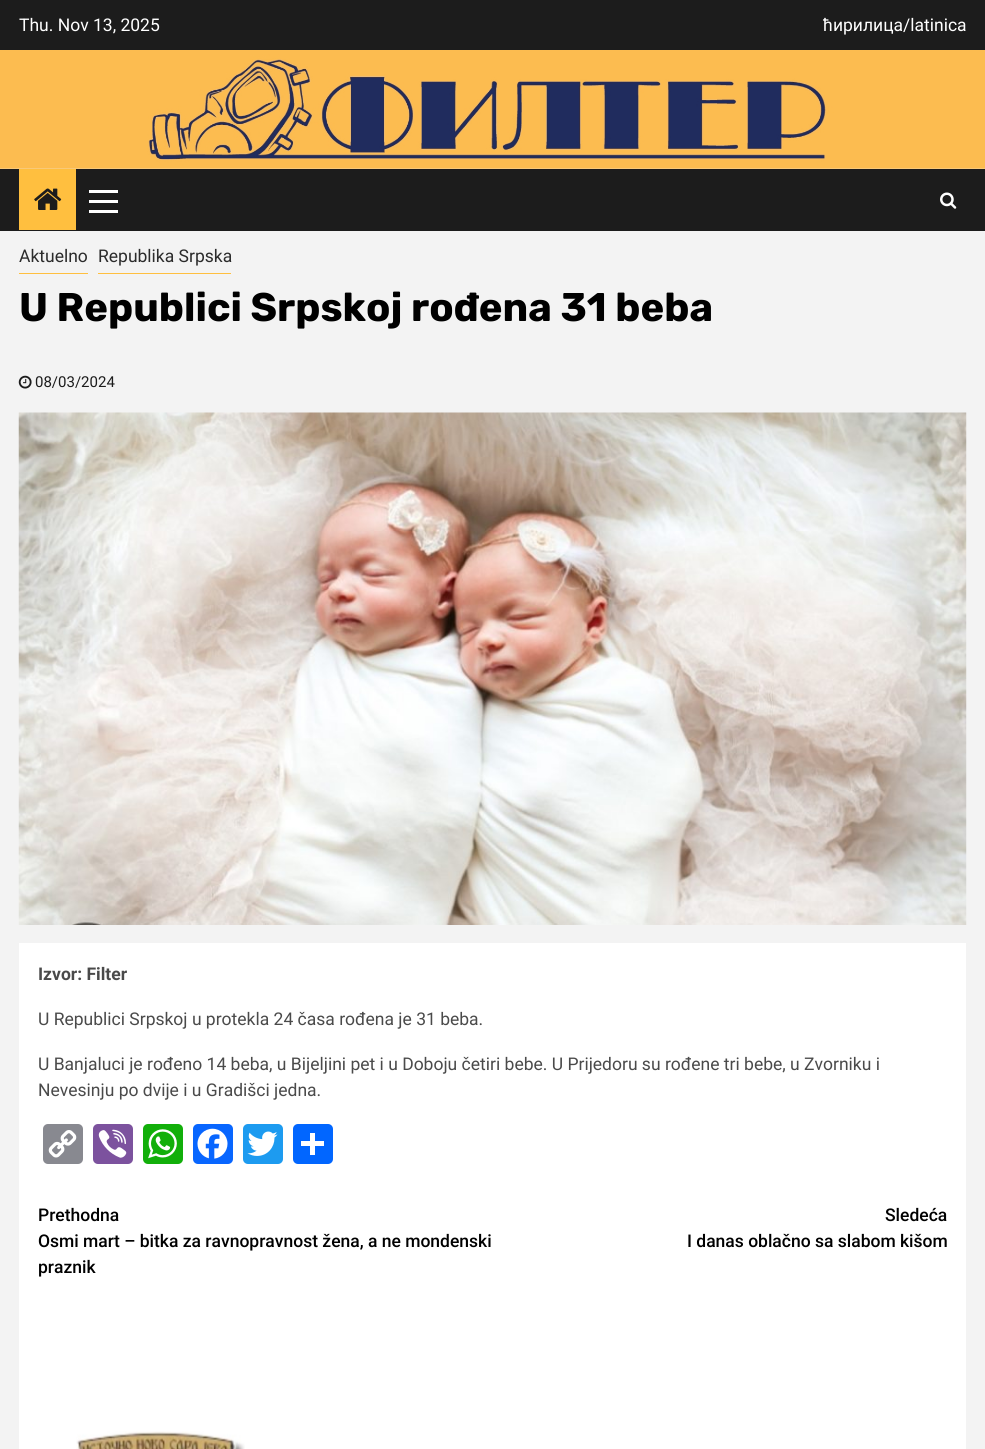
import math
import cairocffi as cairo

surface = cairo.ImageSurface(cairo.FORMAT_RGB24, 985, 1449)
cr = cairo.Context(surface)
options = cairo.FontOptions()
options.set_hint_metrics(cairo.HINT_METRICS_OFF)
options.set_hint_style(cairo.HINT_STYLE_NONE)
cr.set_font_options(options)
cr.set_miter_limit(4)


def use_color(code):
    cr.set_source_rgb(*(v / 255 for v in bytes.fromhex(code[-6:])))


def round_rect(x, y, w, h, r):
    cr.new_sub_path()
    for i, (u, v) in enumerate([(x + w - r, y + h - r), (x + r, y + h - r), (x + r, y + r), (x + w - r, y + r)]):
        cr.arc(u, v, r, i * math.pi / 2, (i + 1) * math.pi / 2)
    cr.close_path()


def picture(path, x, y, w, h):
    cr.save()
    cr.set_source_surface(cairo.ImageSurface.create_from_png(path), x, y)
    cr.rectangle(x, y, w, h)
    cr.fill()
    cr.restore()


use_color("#f3f3f3")
cr.paint()
use_color("#1c1c1c")
cr.rectangle(0, 0, 985, 50)
cr.fill()
cr.select_font_face("Roboto")
cr.set_font_size(17.5)
use_color("#ffffff")
cr.move_to(19, 31)
cr.show_text("Thu. Nov 13, 2025")
cr.move_to(823, 31)
cr.show_text("ћирилица/latinica")
picture("img1.png", 0, 50, 985, 119)
use_color("#1c1c1c")
cr.rectangle(0, 169, 985, 62)
cr.fill()
use_color("#ffbf3f")
cr.rectangle(19, 169, 57, 61)
cr.fill()
picture("img2.png", 34, 188, 28, 22)
use_color("#ffffff")
cr.rectangle(89, 200, 29, 3)
cr.fill()
cr.rectangle(89, 190, 29, 3)
cr.fill()
cr.rectangle(89, 210, 29, 3)
cr.fill()
picture("img3.png", 940, 192, 17, 17)
use_color("#ffbf3f")
cr.rectangle(19, 273, 69, 1)
cr.fill()
use_color("#2b2b2b")
cr.move_to(19, 262)
cr.show_text("Aktuelno")
use_color("#ffbf3f")
cr.rectangle(98, 273, 133, 1)
cr.fill()
use_color("#2b2b2b")
cr.move_to(98, 262)
cr.show_text("Republika Srpska")
cr.select_font_face("Rubik", cairo.FONT_SLANT_NORMAL, cairo.FONT_WEIGHT_BOLD)
cr.set_font_size(40)
use_color("#000000")
cr.move_to(19, 321)
cr.show_text("U Republici Srpskoj rođena 31 beba")
picture("img4.png", 18, 375, 14, 14)
cr.select_font_face("Roboto")
cr.set_font_size(15)
use_color("#1c1c1c")
cr.move_to(35, 387)
cr.show_text("08/03/2024")
picture("img5.png", 18, 412, 949, 513)
use_color("#ffffff")
cr.rectangle(19, 943, 947, 506)
cr.fill()
cr.select_font_face("Roboto", cairo.FONT_SLANT_NORMAL, cairo.FONT_WEIGHT_BOLD)
cr.set_font_size(17.5)
use_color("#4a4a4a")
cr.move_to(38, 980)
cr.show_text("Izvor: Filter")
cr.select_font_face("Roboto")
cr.move_to(38, 1025)
cr.show_text("U Republici Srpskoj u protekla 24 časa rođena je 31 beba.")
cr.move_to(38, 1070)
cr.show_text("U Banjaluci je rođeno 14 beba, u Bijeljini pet i u Doboju četiri bebe. U Prijedoru su rođene tri bebe, u Zvorniku i")
cr.move_to(38, 1096)
cr.show_text("Nevesinju po dvije i u Gradišci jedna.")
use_color("#888990")
round_rect(43, 1124, 40, 40, 5)
cr.fill()
picture("img6.png", 48, 1130, 29, 28)
use_color("#7c529e")
round_rect(93, 1124, 40, 40, 5)
cr.fill()
picture("img7.png", 98, 1129, 29, 29)
use_color("#12af0a")
round_rect(143, 1124, 40, 40, 5)
cr.fill()
picture("img8.png", 148, 1129, 29, 30)
use_color("#0866ff")
round_rect(193, 1124, 40, 40, 5)
cr.fill()
picture("img9.png", 197, 1128, 31, 31)
use_color("#1d9bf0")
round_rect(243, 1124, 40, 40, 5)
cr.fill()
picture("img10.png", 247, 1131, 31, 25)
use_color("#0166ff")
round_rect(293, 1124, 40, 40, 5)
cr.fill()
use_color("#ffffff")
cr.rectangle(310, 1133, 5, 22)
cr.fill()
cr.rectangle(301, 1141, 23, 5)
cr.fill()
cr.select_font_face("Roboto Medium")
use_color("#000000")
cr.move_to(38, 1221)
cr.show_text("Prethodna")
cr.move_to(38, 1247)
cr.show_text("Osmi mart – bitka za ravnopravnost žena, a ne mondenski")
cr.move_to(38, 1273)
cr.show_text("praznik")
cr.move_to(885, 1221)
cr.show_text("Sledeća")
cr.move_to(687, 1247)
cr.show_text("I danas oblačno sa slabom kišom")
picture("img11.png", 76, 1431, 169, 18)
surface.write_to_png("result.png")
